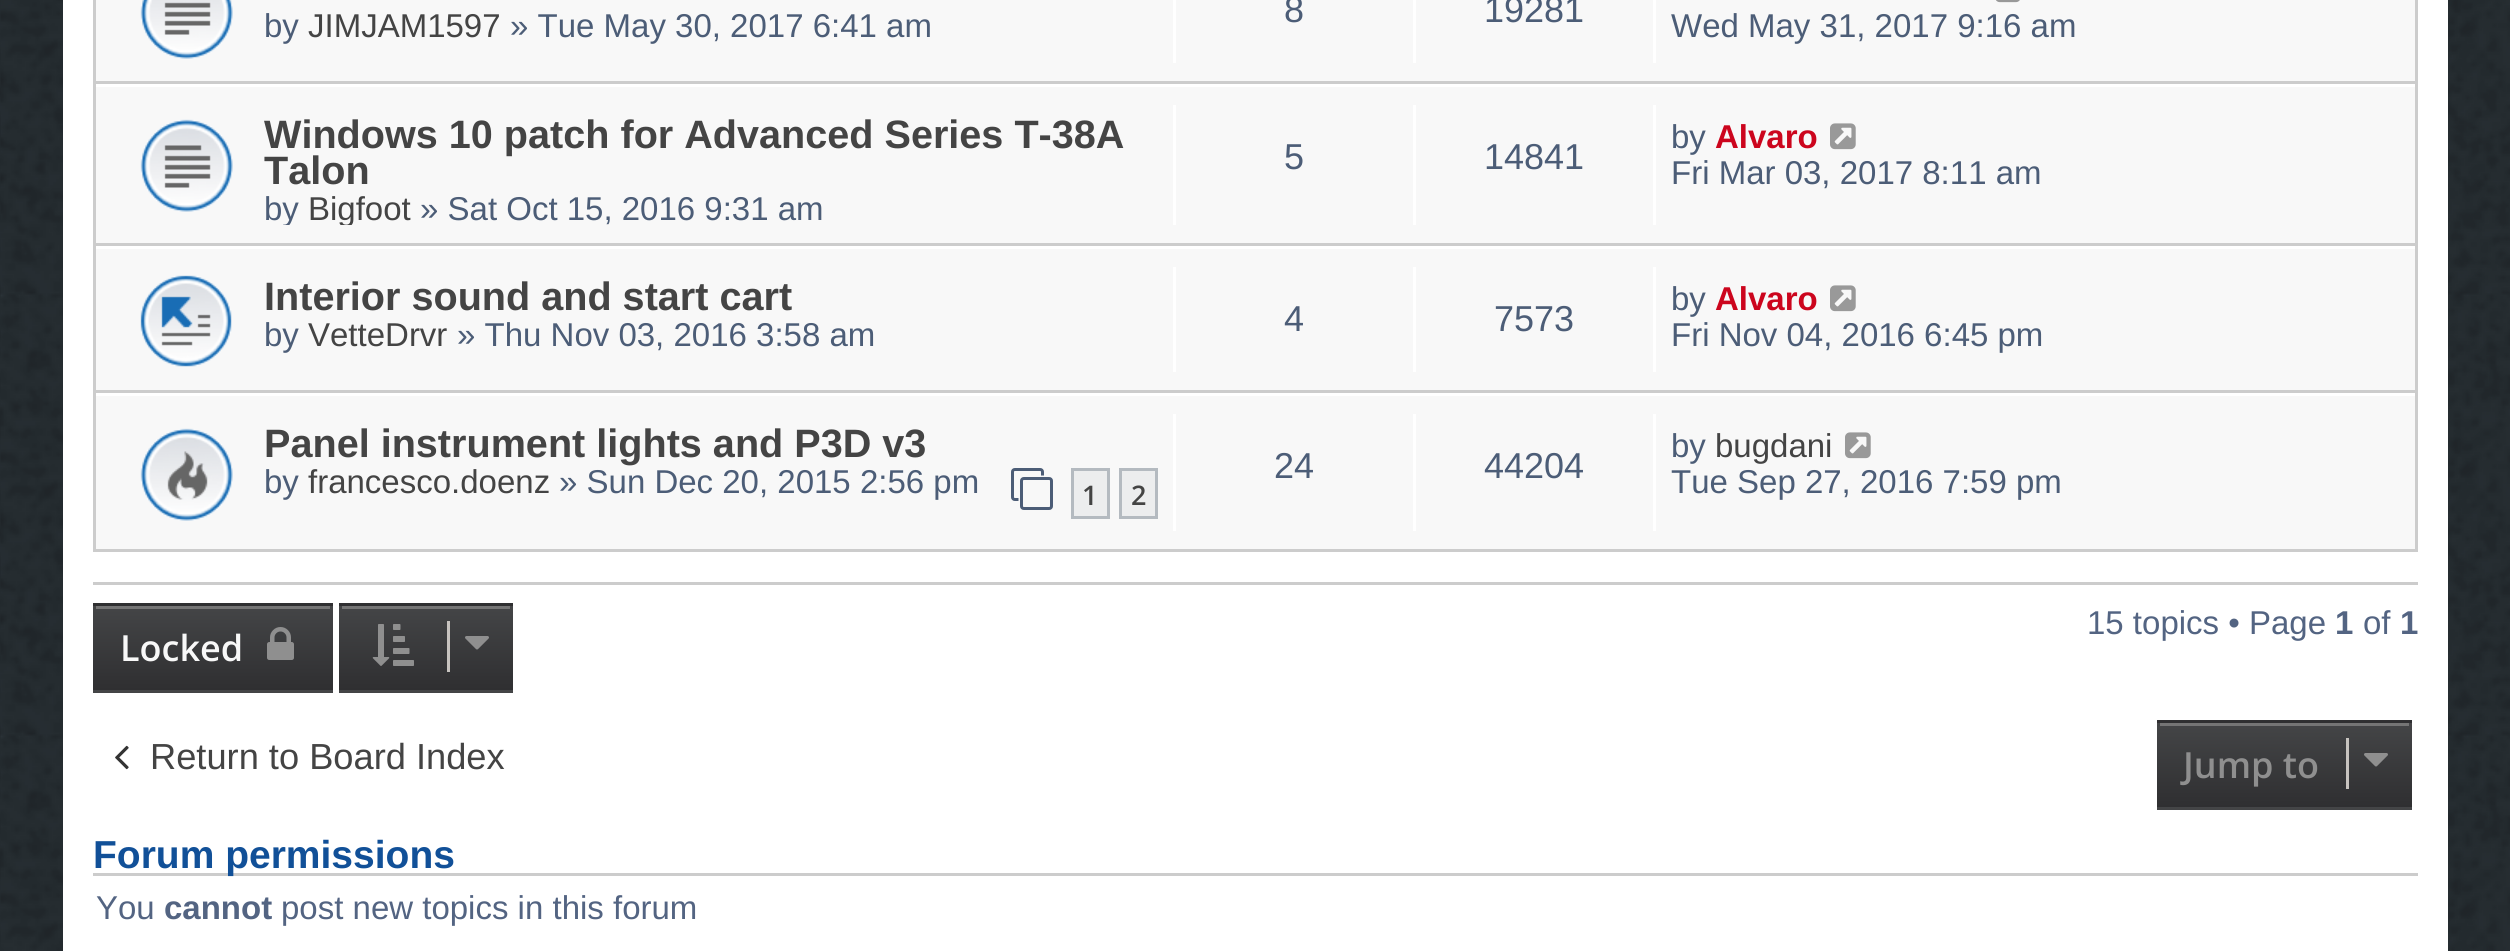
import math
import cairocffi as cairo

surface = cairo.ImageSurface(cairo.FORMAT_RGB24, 2510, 951)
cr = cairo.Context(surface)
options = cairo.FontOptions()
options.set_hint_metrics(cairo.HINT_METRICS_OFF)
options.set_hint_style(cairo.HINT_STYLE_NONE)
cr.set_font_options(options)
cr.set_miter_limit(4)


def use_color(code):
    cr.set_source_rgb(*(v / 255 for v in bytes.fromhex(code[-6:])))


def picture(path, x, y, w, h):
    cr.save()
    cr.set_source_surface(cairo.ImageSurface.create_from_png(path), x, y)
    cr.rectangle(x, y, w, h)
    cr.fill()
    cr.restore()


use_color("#ffffff")
cr.paint()
picture("img1.png", 0, 0, 2510, 951)
use_color("#ffffff")
cr.rectangle(63, 0, 2385, 951)
cr.fill()
use_color("#f8f8f8")
cr.rectangle(96, 0, 2319, 81)
cr.fill()
use_color("#cccccc")
cr.rectangle(2415, 0, 3, 552)
cr.fill()
cr.rectangle(93, 81, 2325, 3)
cr.fill()
cr.rectangle(93, 0, 3, 84)
cr.fill()
picture("img2.png", 140, 0, 93, 59)
cr.select_font_face("Liberation Sans")
cr.set_font_size(33)
use_color("#4c5d77")
cr.move_to(264, 37)
cr.show_text("by")
use_color("#444444")
cr.move_to(308, 37)
cr.show_text("JIMJAM1597")
use_color("#4c5d77")
cr.move_to(510, 37)
cr.show_text("» Tue May 30, 2017 6:41 am")
use_color("#ffffff")
cr.rectangle(1173, 0, 3, 63)
cr.fill()
cr.set_font_size(36)
use_color("#4c5d77")
cr.move_to(1284, 22)
cr.show_text("8")
use_color("#ffffff")
cr.rectangle(1413, 0, 3, 63)
cr.fill()
use_color("#4c5d77")
cr.move_to(1484, 22)
cr.show_text("19281")
use_color("#ffffff")
cr.rectangle(1653, 0, 3, 63)
cr.fill()
picture("img3.png", 1996, 0, 24, 3)
cr.set_font_size(33)
use_color("#4c5d77")
cr.move_to(1671, 37)
cr.show_text("Wed May 31, 2017 9:16 am")
use_color("#f8f8f8")
cr.rectangle(96, 87, 2319, 156)
cr.fill()
use_color("#cccccc")
cr.rectangle(93, 243, 2325, 3)
cr.fill()
cr.rectangle(93, 84, 3, 162)
cr.fill()
picture("img4.png", 140, 119, 93, 93)
cr.select_font_face("Liberation Sans", cairo.FONT_SLANT_NORMAL, cairo.FONT_WEIGHT_BOLD)
cr.set_font_size(39.6)
use_color("#444444")
cr.move_to(264, 148)
cr.show_text("Windows 10 patch for Advanced Series T-38A")
cr.move_to(264, 184)
cr.show_text("Talon")
cr.save()
cr.rectangle(108, 105, 2295, 120)
cr.clip()
cr.select_font_face("Liberation Sans")
cr.set_font_size(33)
use_color("#4c5d77")
cr.move_to(264, 220)
cr.show_text("by")
use_color("#444444")
cr.move_to(308, 220)
cr.show_text("Bigfoot")
cr.restore()
cr.select_font_face("Liberation Sans")
cr.set_font_size(33)
use_color("#4c5d77")
cr.move_to(420, 220)
cr.show_text("» Sat Oct 15, 2016 9:31 am")
use_color("#ffffff")
cr.rectangle(1173, 105, 3, 120)
cr.fill()
cr.set_font_size(36)
use_color("#4c5d77")
cr.move_to(1284, 169)
cr.show_text("5")
use_color("#ffffff")
cr.rectangle(1413, 105, 3, 120)
cr.fill()
use_color("#4c5d77")
cr.move_to(1484, 169)
cr.show_text("14841")
use_color("#ffffff")
cr.rectangle(1653, 105, 3, 120)
cr.fill()
cr.set_font_size(33)
use_color("#4c5d77")
cr.move_to(1671, 148)
cr.show_text("by")
cr.select_font_face("Liberation Sans", cairo.FONT_SLANT_NORMAL, cairo.FONT_WEIGHT_BOLD)
use_color("#cc051d")
cr.move_to(1715, 148)
cr.show_text("Alvaro")
picture("img5.png", 1830, 123, 26, 27)
cr.select_font_face("Liberation Sans")
use_color("#4c5d77")
cr.move_to(1671, 184)
cr.show_text("Fri Mar 03, 2017 8:11 am")
use_color("#f8f8f8")
cr.rectangle(96, 249, 2319, 141)
cr.fill()
use_color("#cccccc")
cr.rectangle(93, 390, 2325, 3)
cr.fill()
cr.rectangle(93, 246, 3, 147)
cr.fill()
picture("img6.png", 140, 275, 92, 92)
cr.select_font_face("Liberation Sans", cairo.FONT_SLANT_NORMAL, cairo.FONT_WEIGHT_BOLD)
cr.set_font_size(39.6)
use_color("#444444")
cr.move_to(264, 310)
cr.show_text("Interior sound and start cart")
cr.select_font_face("Liberation Sans")
cr.set_font_size(33)
use_color("#4c5d77")
cr.move_to(264, 346)
cr.show_text("by")
use_color("#444444")
cr.move_to(308, 346)
cr.show_text("VetteDrvr")
use_color("#4c5d77")
cr.move_to(457, 346)
cr.show_text("» Thu Nov 03, 2016 3:58 am")
use_color("#ffffff")
cr.rectangle(1173, 267, 3, 105)
cr.fill()
cr.set_font_size(36)
use_color("#4c5d77")
cr.move_to(1284, 331)
cr.show_text("4")
use_color("#ffffff")
cr.rectangle(1413, 267, 3, 105)
cr.fill()
use_color("#4c5d77")
cr.move_to(1494, 331)
cr.show_text("7573")
use_color("#ffffff")
cr.rectangle(1653, 267, 3, 105)
cr.fill()
cr.set_font_size(33)
use_color("#4c5d77")
cr.move_to(1671, 310)
cr.show_text("by")
cr.select_font_face("Liberation Sans", cairo.FONT_SLANT_NORMAL, cairo.FONT_WEIGHT_BOLD)
use_color("#cc051d")
cr.move_to(1715, 310)
cr.show_text("Alvaro")
picture("img5.png", 1830, 285, 26, 27)
cr.select_font_face("Liberation Sans")
use_color("#4c5d77")
cr.move_to(1671, 346)
cr.show_text("Fri Nov 04, 2016 6:45 pm")
use_color("#f8f8f8")
cr.rectangle(96, 396, 2319, 153)
cr.fill()
use_color("#cccccc")
cr.rectangle(93, 549, 2325, 3)
cr.fill()
cr.rectangle(93, 393, 3, 159)
cr.fill()
picture("img7.png", 140, 428, 93, 93)
cr.select_font_face("Liberation Sans", cairo.FONT_SLANT_NORMAL, cairo.FONT_WEIGHT_BOLD)
cr.set_font_size(39.6)
use_color("#444444")
cr.move_to(264, 457)
cr.show_text("Panel instrument lights and P3D v3")
cr.select_font_face("Liberation Sans")
cr.set_font_size(33)
use_color("#4c5d77")
cr.move_to(264, 493)
cr.show_text("by")
use_color("#444444")
cr.move_to(308, 493)
cr.show_text("francesco.doenz")
use_color("#4c5d77")
cr.move_to(559, 493)
cr.show_text("» Sun Dec 20, 2015 2:56 pm")
picture("img8.png", 1011, 468, 42, 42)
use_color("#ecedee")
cr.rectangle(1072.5, 469.5, 36, 48)
cr.fill_preserve()
use_color("#b4bac0")
cr.set_line_width(3)
cr.stroke()
cr.select_font_face("Open Sans SemiBold")
cr.set_font_size(27)
use_color("#444444")
cr.move_to(1082, 505)
cr.show_text("1")
use_color("#ecedee")
cr.rectangle(1120.5, 469.5, 36, 48)
cr.fill_preserve()
use_color("#b4bac0")
cr.stroke()
use_color("#444444")
cr.move_to(1131, 505)
cr.show_text("2")
use_color("#ffffff")
cr.rectangle(1173, 414, 3, 117)
cr.fill()
cr.select_font_face("Liberation Sans")
cr.set_font_size(36)
use_color("#4c5d77")
cr.move_to(1274, 478)
cr.show_text("24")
use_color("#ffffff")
cr.rectangle(1413, 414, 3, 117)
cr.fill()
use_color("#4c5d77")
cr.move_to(1484, 478)
cr.show_text("44204")
use_color("#ffffff")
cr.rectangle(1653, 414, 3, 117)
cr.fill()
cr.set_font_size(33)
use_color("#4c5d77")
cr.move_to(1671, 457)
cr.show_text("by")
use_color("#444444")
cr.move_to(1715, 457)
cr.show_text("bugdani")
picture("img5.png", 1845, 432, 26, 27)
use_color("#4c5d77")
cr.move_to(1671, 493)
cr.show_text("Tue Sep 27, 2016 7:59 pm")
use_color("#cccccc")
cr.rectangle(93, 582, 2325, 3)
cr.fill()
gradient = cairo.LinearGradient(426, 522, 426, 606)
gradient.add_color_stop_rgba(0, 0.267, 0.271, 0.278, 1)
gradient.add_color_stop_rgba(1, 0.184, 0.184, 0.192, 1)
cr.set_source(gradient)
cr.rectangle(339, 603, 174, 3)
cr.fill()
gradient = cairo.LinearGradient(426, 606, 426, 690)
gradient.add_color_stop_rgba(0, 0.267, 0.271, 0.278, 1)
gradient.add_color_stop_rgba(1, 0.184, 0.184, 0.192, 1)
cr.set_source(gradient)
cr.rectangle(339, 606, 174, 84)
cr.fill()
gradient = cairo.LinearGradient(426, 690, 426, 774)
gradient.add_color_stop_rgba(0, 0.267, 0.271, 0.278, 1)
gradient.add_color_stop_rgba(1, 0.184, 0.184, 0.192, 1)
cr.set_source(gradient)
cr.rectangle(339, 690, 174, 3)
cr.fill()
use_color("#757575")
cr.rectangle(342, 606, 168, 3)
cr.fill()
picture("img9.png", 372, 624, 42, 42)
use_color("#c7c3bf")
cr.rectangle(447, 621, 3, 51)
cr.fill()
picture("img10.png", 465, 636, 24, 14)
use_color("#536482")
cr.move_to(2087, 634)
cr.show_text("15 topics • Page")
cr.select_font_face("Liberation Sans", cairo.FONT_SLANT_NORMAL, cairo.FONT_WEIGHT_BOLD)
cr.move_to(2335, 634)
cr.show_text("1")
cr.select_font_face("Liberation Sans")
cr.move_to(2363, 634)
cr.show_text("of")
cr.select_font_face("Liberation Sans", cairo.FONT_SLANT_NORMAL, cairo.FONT_WEIGHT_BOLD)
cr.move_to(2400, 634)
cr.show_text("1")
gradient = cairo.LinearGradient(213, 522, 213, 606)
gradient.add_color_stop_rgba(0, 0.267, 0.271, 0.278, 1)
gradient.add_color_stop_rgba(1, 0.184, 0.184, 0.192, 1)
cr.set_source(gradient)
cr.rectangle(93, 603, 240, 3)
cr.fill()
gradient = cairo.LinearGradient(213, 606, 213, 690)
gradient.add_color_stop_rgba(0, 0.267, 0.271, 0.278, 1)
gradient.add_color_stop_rgba(1, 0.184, 0.184, 0.192, 1)
cr.set_source(gradient)
cr.rectangle(93, 606, 240, 84)
cr.fill()
gradient = cairo.LinearGradient(213, 690, 213, 774)
gradient.add_color_stop_rgba(0, 0.267, 0.271, 0.278, 1)
gradient.add_color_stop_rgba(1, 0.184, 0.184, 0.192, 1)
cr.set_source(gradient)
cr.rectangle(93, 690, 240, 3)
cr.fill()
use_color("#757575")
cr.rectangle(96, 606, 234, 3)
cr.fill()
cr.select_font_face("Open Sans SemiBold")
cr.set_font_size(36)
use_color("#f8f8f8")
cr.move_to(120, 661)
cr.show_text("Locked")
picture("img11.png", 267, 627, 27, 33)
picture("img12.png", 115, 745, 14, 25)
cr.select_font_face("Liberation Sans")
cr.set_font_size(36.25)
use_color("#444444")
cr.move_to(150, 769)
cr.show_text("Return to Board Index")
gradient = cairo.LinearGradient(2285, 639, 2285, 723)
gradient.add_color_stop_rgba(0, 0.267, 0.271, 0.278, 1)
gradient.add_color_stop_rgba(1, 0.184, 0.184, 0.192, 1)
cr.set_source(gradient)
cr.rectangle(2157, 720, 255, 3)
cr.fill()
gradient = cairo.LinearGradient(2285, 723, 2285, 807)
gradient.add_color_stop_rgba(0, 0.267, 0.271, 0.278, 1)
gradient.add_color_stop_rgba(1, 0.184, 0.184, 0.192, 1)
cr.set_source(gradient)
cr.rectangle(2157, 723, 255, 84)
cr.fill()
gradient = cairo.LinearGradient(2285, 807, 2285, 891)
gradient.add_color_stop_rgba(0, 0.267, 0.271, 0.278, 1)
gradient.add_color_stop_rgba(1, 0.184, 0.184, 0.192, 1)
cr.set_source(gradient)
cr.rectangle(2157, 807, 255, 3)
cr.fill()
use_color("#757575")
cr.rectangle(2160, 723, 249, 3)
cr.fill()
cr.select_font_face("Open Sans SemiBold")
cr.set_font_size(36)
use_color("#8f8f8f")
cr.move_to(2183, 778)
cr.show_text("Jump to")
use_color("#c7c3bf")
cr.rectangle(2346, 738, 3, 51)
cr.fill()
picture("img10.png", 2364, 753, 24, 14)
use_color("#cccccc")
cr.rectangle(93, 873, 2325, 3)
cr.fill()
cr.select_font_face("Liberation Sans", cairo.FONT_SLANT_NORMAL, cairo.FONT_WEIGHT_BOLD)
cr.set_font_size(39)
use_color("#115098")
cr.move_to(93, 868)
cr.show_text("Forum permissions")
cr.select_font_face("Liberation Sans")
cr.set_font_size(33)
use_color("#536482")
cr.move_to(96, 919)
cr.show_text("You")
cr.select_font_face("Liberation Sans", cairo.FONT_SLANT_NORMAL, cairo.FONT_WEIGHT_BOLD)
cr.move_to(164, 919)
cr.show_text("cannot")
cr.select_font_face("Liberation Sans")
cr.move_to(281, 919)
cr.show_text("post new topics in this forum")
surface.write_to_png("result.png")
